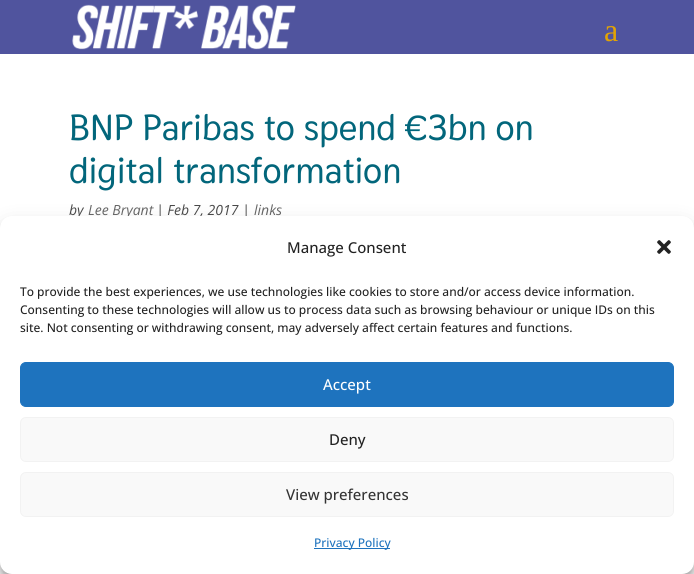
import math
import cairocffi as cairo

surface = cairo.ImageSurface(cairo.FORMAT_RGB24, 694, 574)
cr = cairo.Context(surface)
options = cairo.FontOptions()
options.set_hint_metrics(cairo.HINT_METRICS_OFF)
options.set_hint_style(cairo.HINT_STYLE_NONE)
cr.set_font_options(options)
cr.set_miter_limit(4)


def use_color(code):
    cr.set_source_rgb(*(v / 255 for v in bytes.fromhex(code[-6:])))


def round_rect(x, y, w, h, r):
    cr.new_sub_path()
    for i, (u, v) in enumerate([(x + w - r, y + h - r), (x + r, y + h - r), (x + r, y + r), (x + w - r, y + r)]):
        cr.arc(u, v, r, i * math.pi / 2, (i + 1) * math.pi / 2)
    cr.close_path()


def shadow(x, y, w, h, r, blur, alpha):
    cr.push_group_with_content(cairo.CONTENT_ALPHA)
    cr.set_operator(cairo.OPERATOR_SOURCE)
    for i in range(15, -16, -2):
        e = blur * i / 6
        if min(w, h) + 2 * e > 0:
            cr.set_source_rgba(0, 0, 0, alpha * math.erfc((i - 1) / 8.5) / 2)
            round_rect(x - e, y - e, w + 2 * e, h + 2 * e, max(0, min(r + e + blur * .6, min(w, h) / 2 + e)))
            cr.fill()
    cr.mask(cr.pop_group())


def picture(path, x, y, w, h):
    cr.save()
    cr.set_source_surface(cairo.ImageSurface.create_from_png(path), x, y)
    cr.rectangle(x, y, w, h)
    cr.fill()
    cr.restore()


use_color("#ffffff")
cr.paint()
use_color("#50549e")
cr.rectangle(0, 0, 694, 54)
cr.fill()
picture("img1.png", 72, 4, 224, 46)
cr.select_font_face("Liberation Serif")
cr.set_font_size(32)
use_color("#e2a304")
cr.move_to(604, 41)
cr.show_text("a")
cr.select_font_face("Thasadith", cairo.FONT_SLANT_NORMAL, cairo.FONT_WEIGHT_BOLD)
cr.set_font_size(36)
use_color("#02667b")
cr.move_to(69, 140)
cr.show_text("BNP Paribas to spend €3bn on")
cr.move_to(69, 183)
cr.show_text("digital transformation")
cr.select_font_face("Open Sans", cairo.FONT_SLANT_ITALIC)
cr.set_font_size(14)
use_color("#494949")
cr.move_to(69, 215)
cr.show_text("by")
use_color("#666666")
cr.move_to(88, 215)
cr.show_text("Lee Bryant")
use_color("#494949")
cr.move_to(156, 215)
cr.show_text("| Feb 7, 2017 |")
use_color("#666666")
cr.move_to(254, 215)
cr.show_text("links")
use_color("#000000")
shadow(0, 222, 694, 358, 12, 3, 0.23)
shadow(0, 226, 694, 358, 12, 10, 0.19)
use_color("#808080")
shadow(624, 500, 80, 60, 2, 2.5, 1)
use_color("#ffffff")
round_rect(0, 216, 694, 358, 12)
cr.fill()
cr.select_font_face("Open Sans Medium")
cr.set_font_size(15)
use_color("#222222")
cr.move_to(287, 253)
cr.show_text("Manage Consent")
picture("img2.png", 657, 240, 14, 14)
cr.set_font_size(12)
cr.move_to(20, 296)
cr.show_text("To provide the best experiences, we use technologies like cookies to store and/or access device information.")
cr.move_to(20, 314)
cr.show_text("Consenting to these technologies will allow us to process data such as browsing behaviour or unique IDs on this")
cr.move_to(20, 332)
cr.show_text("site. Not consenting or withdrawing consent, may adversely affect certain features and functions.")
use_color("#1e73be")
round_rect(20.5, 362.5, 653, 44, 5.5)
cr.fill_preserve()
cr.set_line_width(1)
cr.stroke()
cr.set_font_size(15)
use_color("#ffffff")
cr.move_to(323, 390)
cr.show_text("Accept")
use_color("#f9f9f9")
round_rect(20.5, 417.5, 653, 44, 5.5)
cr.fill_preserve()
use_color("#f2f2f2")
cr.stroke()
use_color("#222222")
cr.move_to(329, 445)
cr.show_text("Deny")
use_color("#f9f9f9")
round_rect(20.5, 472.5, 653, 44, 5.5)
cr.fill_preserve()
use_color("#f2f2f2")
cr.stroke()
use_color("#333333")
cr.move_to(286, 500)
cr.show_text("View preferences")
use_color("#1e73be")
cr.rectangle(314, 548, 76, 1)
cr.fill()
cr.set_font_size(12)
cr.move_to(314, 547)
cr.show_text("Privacy Policy")
surface.write_to_png("result.png")
